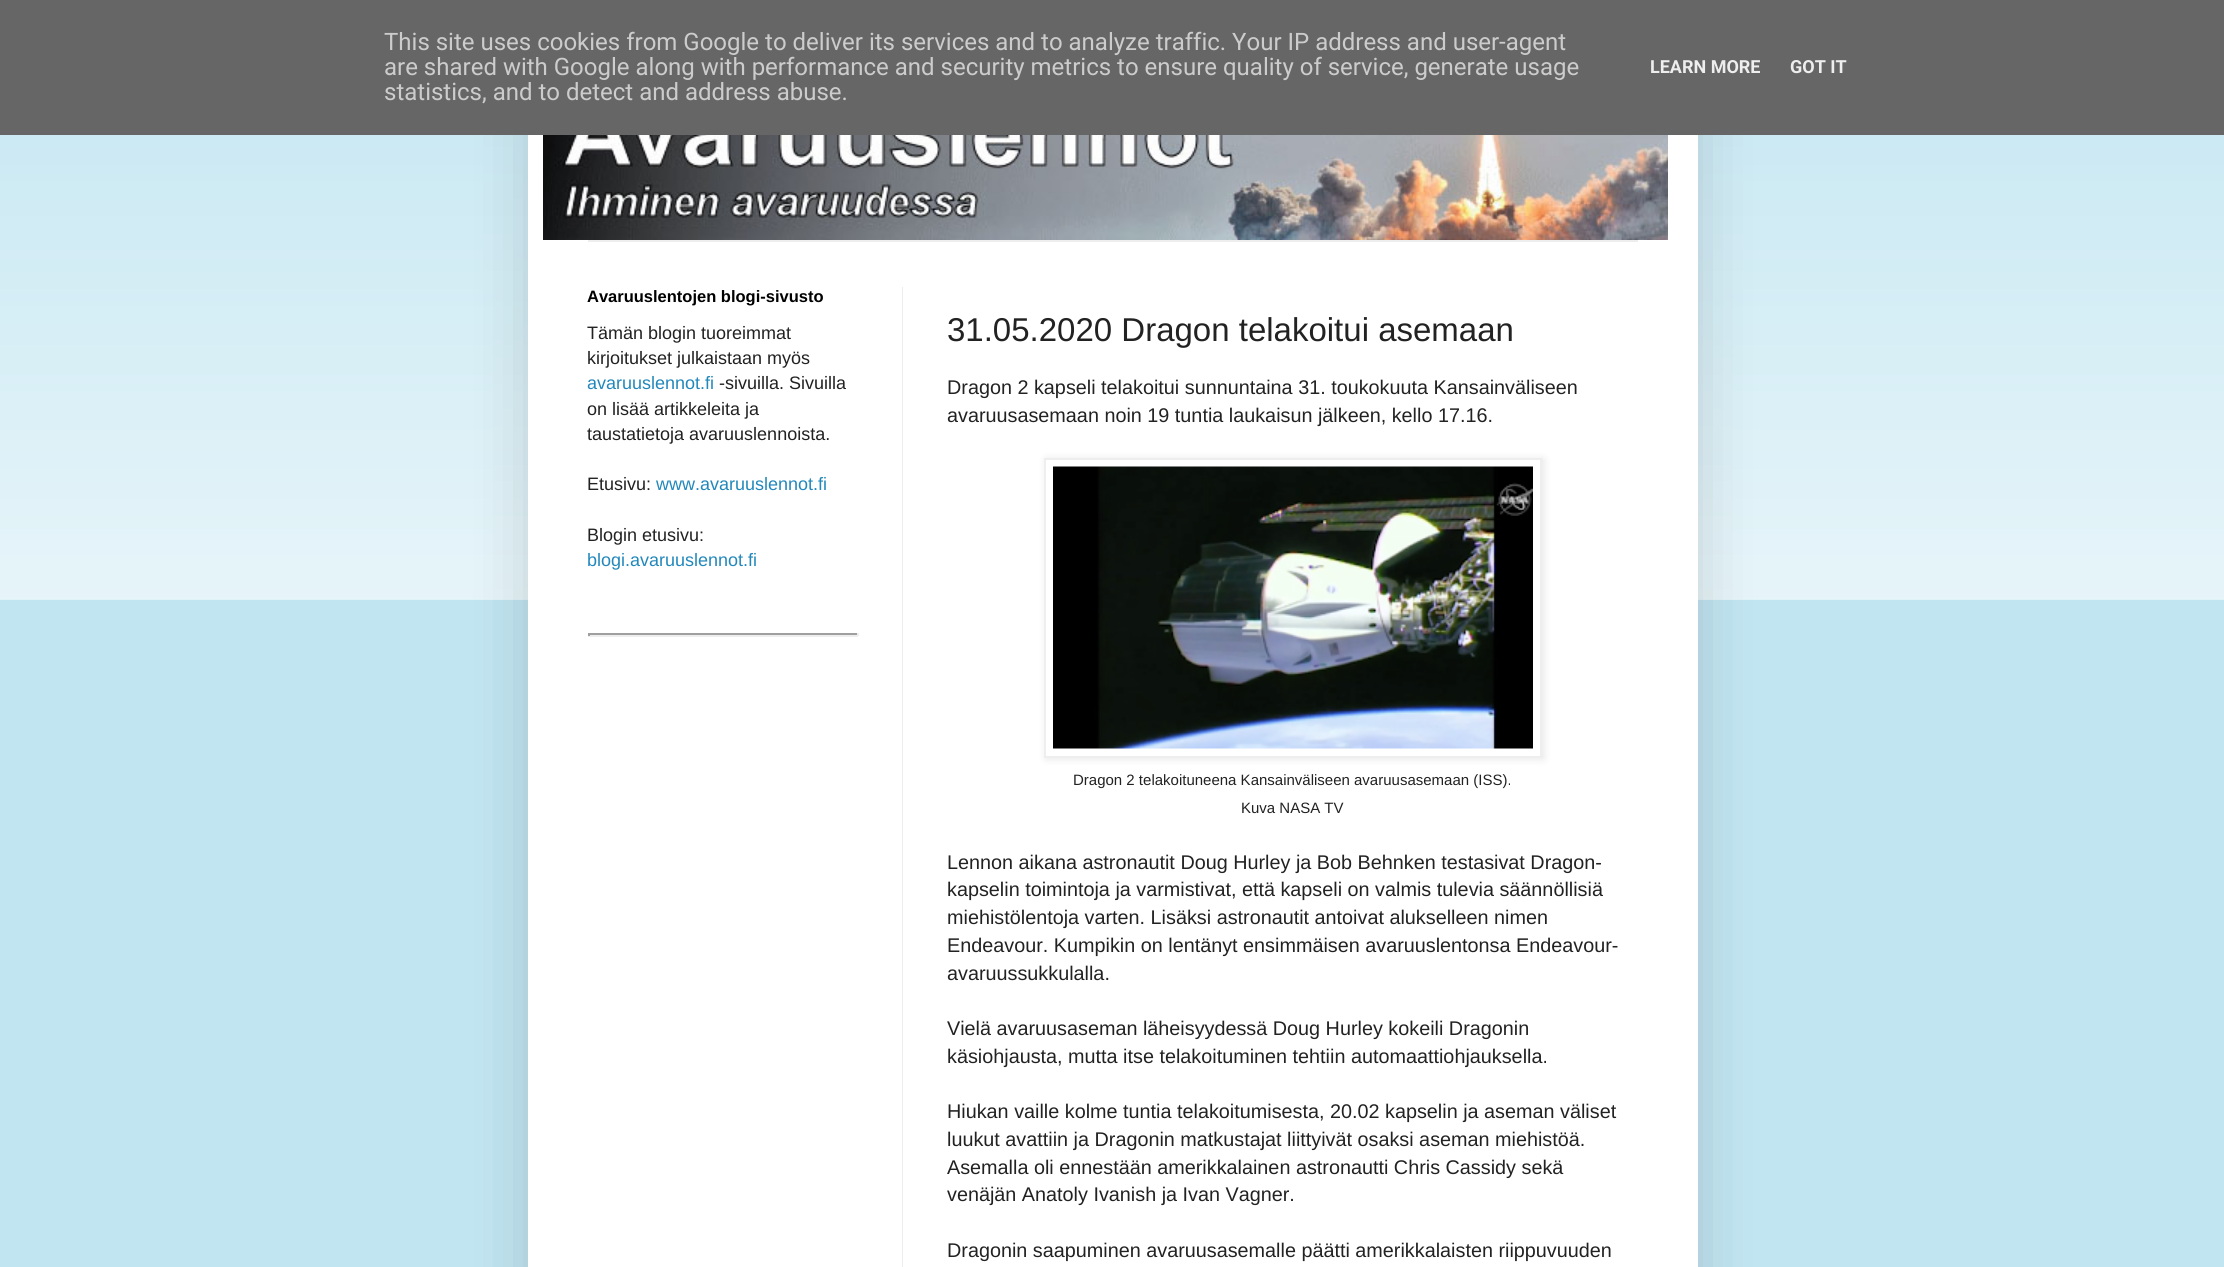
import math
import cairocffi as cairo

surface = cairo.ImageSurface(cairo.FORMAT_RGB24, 2224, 1267)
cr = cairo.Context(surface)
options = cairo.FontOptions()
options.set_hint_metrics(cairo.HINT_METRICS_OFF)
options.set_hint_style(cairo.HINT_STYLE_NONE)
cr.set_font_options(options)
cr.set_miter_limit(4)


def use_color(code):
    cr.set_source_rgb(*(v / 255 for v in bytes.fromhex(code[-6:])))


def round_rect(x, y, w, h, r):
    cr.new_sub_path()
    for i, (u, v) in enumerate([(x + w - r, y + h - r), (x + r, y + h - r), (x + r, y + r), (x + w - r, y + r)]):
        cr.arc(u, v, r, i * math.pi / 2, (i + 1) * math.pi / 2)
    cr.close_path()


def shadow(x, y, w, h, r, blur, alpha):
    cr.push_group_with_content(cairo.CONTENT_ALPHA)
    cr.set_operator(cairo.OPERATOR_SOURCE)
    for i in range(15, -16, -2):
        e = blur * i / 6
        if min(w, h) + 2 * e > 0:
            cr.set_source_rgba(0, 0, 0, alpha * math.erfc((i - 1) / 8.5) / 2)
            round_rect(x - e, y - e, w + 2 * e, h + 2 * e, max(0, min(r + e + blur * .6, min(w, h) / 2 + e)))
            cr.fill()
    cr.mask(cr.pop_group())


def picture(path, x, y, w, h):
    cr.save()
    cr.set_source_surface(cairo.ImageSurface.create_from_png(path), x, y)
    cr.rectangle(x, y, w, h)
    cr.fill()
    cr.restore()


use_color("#c1e5f1")
cr.paint()
picture("img1.png", 0, 135, 2224, 465)
use_color("#000000")
shadow(528, 45, 1170, 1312, 0, 30, 0.15)
use_color("#666666")
cr.rectangle(0, 0, 2224, 135)
cr.fill()
cr.select_font_face("Roboto")
cr.set_font_size(24)
use_color("#cccccc")
cr.move_to(384, 50)
cr.show_text("This site uses cookies from Google to deliver its services and to analyze traffic. Your IP address and user-agent")
cr.move_to(384, 75)
cr.show_text("are shared with Google along with performance and security metrics to ensure quality of service, generate usage")
cr.move_to(384, 100)
cr.show_text("statistics, and to detect and address abuse.")
cr.select_font_face("Roboto", cairo.FONT_SLANT_NORMAL, cairo.FONT_WEIGHT_BOLD)
cr.set_font_size(18)
use_color("#eeeeee")
cr.move_to(1650, 73)
cr.show_text("LEARN MORE")
cr.move_to(1790, 73)
cr.show_text("GOT IT")
use_color("#ffffff")
cr.rectangle(528, 135, 1170, 1132)
cr.fill()
picture("img2.png", 543, 135, 1125, 105)
use_color("#eeeeee")
cr.rectangle(588, 240, 1050, 2)
cr.fill()
cr.rectangle(902, 287, 1, 980)
cr.fill()
cr.select_font_face("Liberation Sans", cairo.FONT_SLANT_NORMAL, cairo.FONT_WEIGHT_BOLD)
cr.set_font_size(16.5)
use_color("#000000")
cr.move_to(587, 302)
cr.show_text("Avaruuslentojen blogi-sivusto")
cr.select_font_face("Liberation Sans")
cr.set_font_size(18)
use_color("#222222")
cr.move_to(587, 339)
cr.show_text("Tämän blogin tuoreimmat")
cr.move_to(587, 364)
cr.show_text("kirjoitukset julkaistaan myös")
use_color("#2288bb")
cr.move_to(587, 389)
cr.show_text("avaruuslennot.fi")
use_color("#222222")
cr.move_to(719, 389)
cr.show_text("-sivuilla. Sivuilla")
cr.move_to(587, 415)
cr.show_text("on lisää artikkeleita ja")
cr.move_to(587, 440)
cr.show_text("taustatietoja avaruuslennoista.")
cr.move_to(587, 490)
cr.show_text("Etusivu:")
use_color("#2288bb")
cr.move_to(656, 490)
cr.show_text("www.avaruuslennot.fi")
use_color("#222222")
cr.move_to(587, 541)
cr.show_text("Blogin etusivu:")
use_color("#2288bb")
cr.move_to(587, 566)
cr.show_text("blogi.avaruuslennot.fi")
use_color("#9f9f9f")
cr.rectangle(588, 633, 270, 2)
cr.fill()
use_color("#eeeeee")
cr.rectangle(857, 633, 2, 3)
cr.fill()
cr.rectangle(588, 635, 270, 2)
cr.fill()
use_color("#9f9f9f")
cr.rectangle(588, 633, 2, 3)
cr.fill()
cr.set_font_size(33)
use_color("#222222")
cr.move_to(947, 341)
cr.show_text("31.05.2020 Dragon telakoitui asemaan")
cr.set_font_size(19.8)
cr.move_to(947, 394)
cr.show_text("Dragon 2 kapseli telakoitui sunnuntaina 31. toukokuuta Kansainväliseen")
cr.move_to(947, 422)
cr.show_text("avaruusasemaan noin 19 tuntia laukaisun jälkeen, kello 17.16.")
use_color("#000000")
shadow(1046, 459, 498, 300, 0, 4, 0.1)
use_color("#ffffff")
cr.rectangle(1045, 459, 496, 298)
cr.fill_preserve()
use_color("#eeeeee")
cr.stroke()
picture("img3.png", 1053, 466, 480, 283)
cr.set_font_size(15)
use_color("#222222")
cr.move_to(1073, 785)
cr.show_text("Dragon 2 telakoituneena Kansainväliseen avaruusasemaan (ISS).")
cr.move_to(1241, 813)
cr.show_text("Kuva NASA TV")
cr.set_font_size(19.8)
cr.move_to(947, 869)
cr.show_text("Lennon aikana astronautit Doug Hurley ja Bob Behnken testasivat Dragon-")
cr.move_to(947, 896)
cr.show_text("kapselin toimintoja ja varmistivat, että kapseli on valmis tulevia säännöllisiä")
cr.move_to(947, 924)
cr.show_text("miehistölentoja varten. Lisäksi astronautit antoivat alukselleen nimen")
cr.move_to(947, 952)
cr.show_text("Endeavour. Kumpikin on lentänyt ensimmäisen avaruuslentonsa Endeavour-")
cr.move_to(947, 980)
cr.show_text("avaruussukkulalla.")
cr.move_to(947, 1035)
cr.show_text("Vielä avaruusaseman läheisyydessä Doug Hurley kokeili Dragonin")
cr.move_to(947, 1063)
cr.show_text("käsiohjausta, mutta itse telakoituminen tehtiin automaattiohjauksella.")
cr.move_to(947, 1118)
cr.show_text("Hiukan vaille kolme tuntia telakoitumisesta, 20.02 kapselin ja aseman väliset")
cr.move_to(947, 1146)
cr.show_text("luukut avattiin ja Dragonin matkustajat liittyivät osaksi aseman miehistöä.")
cr.move_to(947, 1174)
cr.show_text("Asemalla oli ennestään amerikkalainen astronautti Chris Cassidy sekä")
cr.move_to(947, 1201)
cr.show_text("venäjän Anatoly Ivanish ja Ivan Vagner.")
cr.move_to(947, 1257)
cr.show_text("Dragonin saapuminen avaruusasemalle päätti amerikkalaisten riippuvuuden")
surface.write_to_png("result.png")
